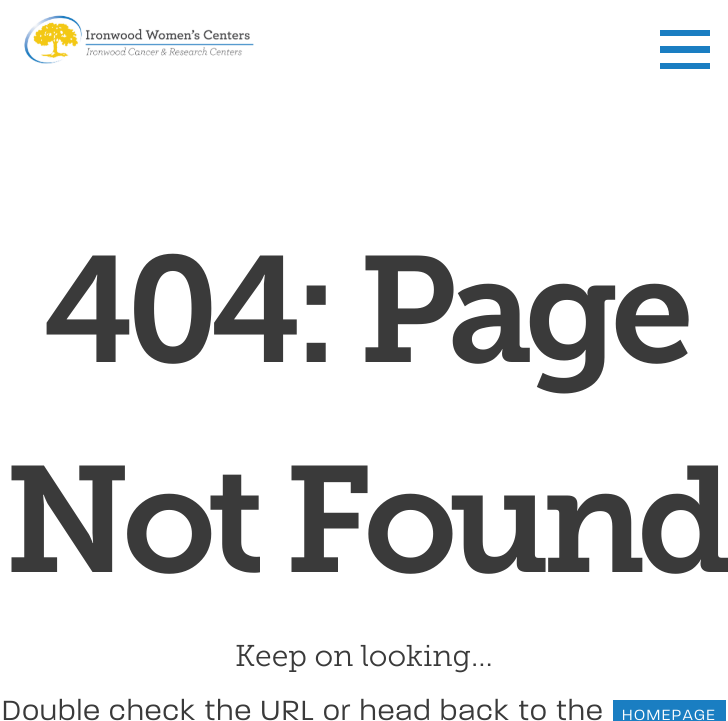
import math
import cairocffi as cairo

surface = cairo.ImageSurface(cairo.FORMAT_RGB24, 728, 721)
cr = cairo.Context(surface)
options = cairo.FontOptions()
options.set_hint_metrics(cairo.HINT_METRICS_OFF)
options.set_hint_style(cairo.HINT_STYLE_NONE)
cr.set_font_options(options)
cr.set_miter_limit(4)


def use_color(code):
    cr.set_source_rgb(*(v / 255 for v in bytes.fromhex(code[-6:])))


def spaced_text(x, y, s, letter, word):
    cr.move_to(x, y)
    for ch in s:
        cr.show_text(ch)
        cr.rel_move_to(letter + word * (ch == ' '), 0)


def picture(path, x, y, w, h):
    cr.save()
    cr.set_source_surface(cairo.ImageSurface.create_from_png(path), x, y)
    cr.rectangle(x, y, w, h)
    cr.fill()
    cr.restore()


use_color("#ffffff")
cr.paint()
picture("img1.png", 24, 15, 230, 49)
use_color("#1a7ec2")
cr.rectangle(660, 63, 50, 6)
cr.fill()
cr.rectangle(660, 46, 50, 7)
cr.fill()
cr.rectangle(660, 30, 50, 6)
cr.fill()
cr.select_font_face("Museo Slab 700 SemiBold")
cr.set_font_size(150)
use_color("#3a3a3a")
spaced_text(43, 362, "404: Page", -9, 0)
spaced_text(4, 572, "Not Found", -9, 0)
cr.select_font_face("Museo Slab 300 Light")
cr.set_font_size(30)
cr.move_to(235, 666)
cr.show_text("Keep on looking...")
cr.select_font_face("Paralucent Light")
spaced_text(2, 720, "Double check the URL or head back to the", 1.5, 0)
use_color("#1a7ec2")
cr.rectangle(613, 700, 113, 21)
cr.fill()
cr.set_font_size(16)
use_color("#fefefe")
spaced_text(622, 720, "HOMEPAGE", 1.5, 0)
surface.write_to_png("result.png")
